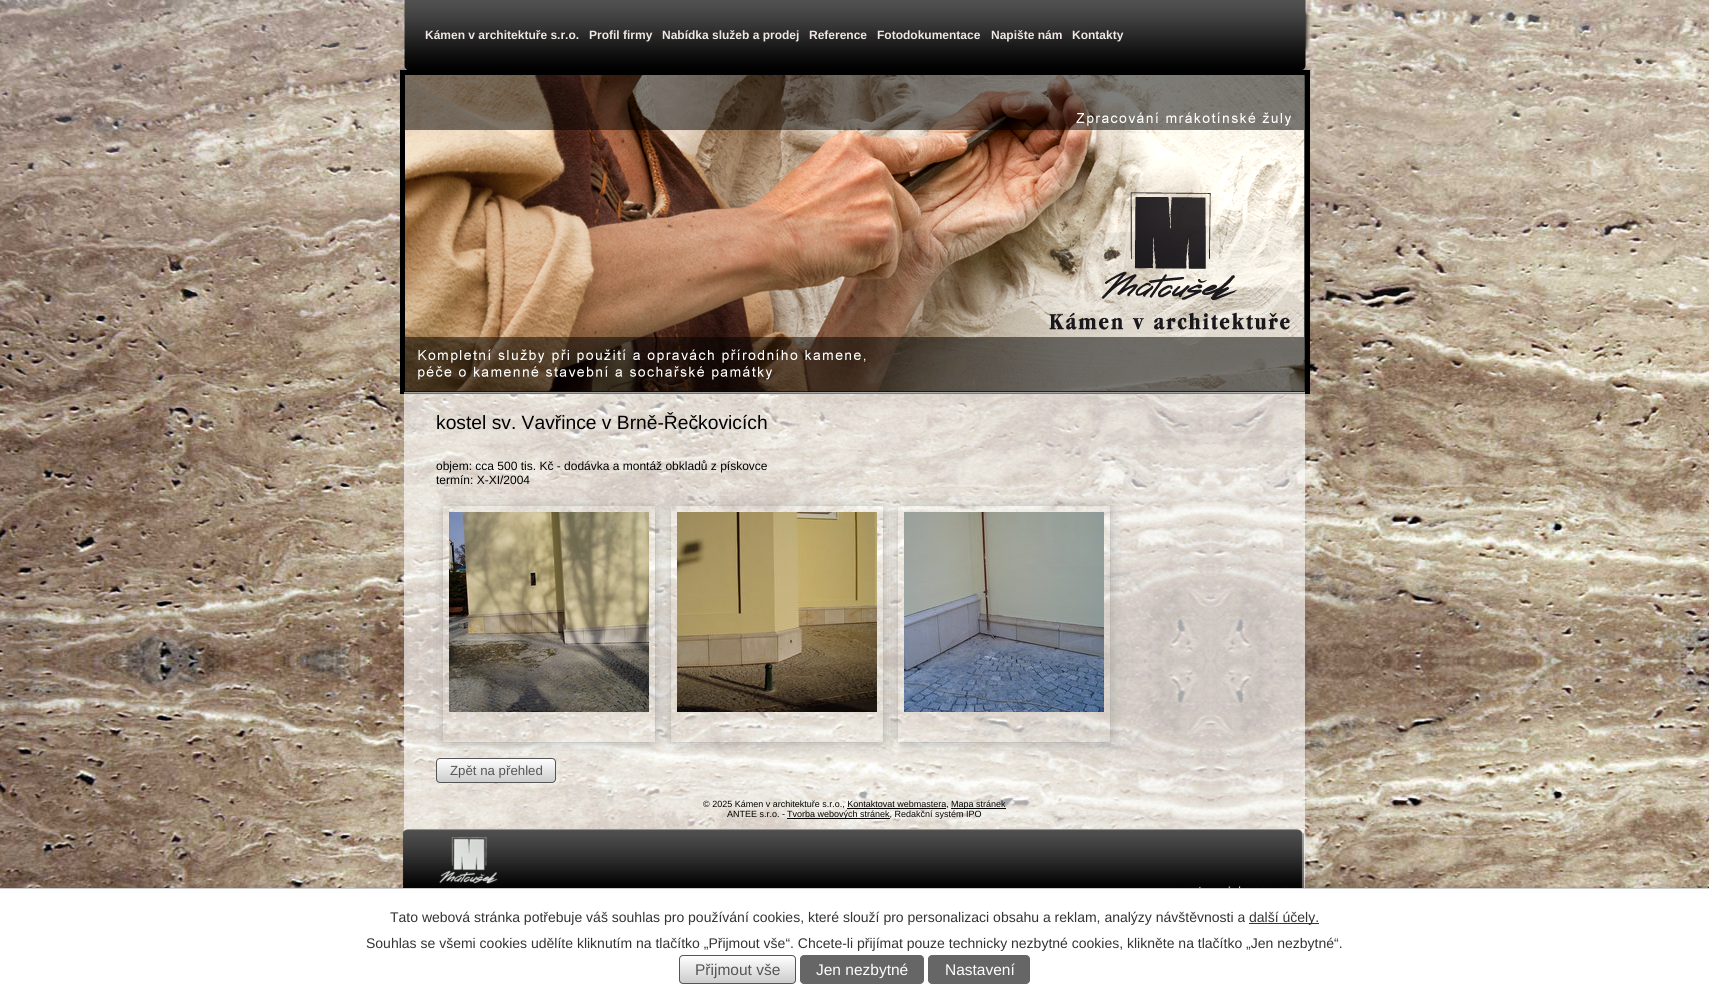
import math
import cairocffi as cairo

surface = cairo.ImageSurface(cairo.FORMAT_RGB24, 1709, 989)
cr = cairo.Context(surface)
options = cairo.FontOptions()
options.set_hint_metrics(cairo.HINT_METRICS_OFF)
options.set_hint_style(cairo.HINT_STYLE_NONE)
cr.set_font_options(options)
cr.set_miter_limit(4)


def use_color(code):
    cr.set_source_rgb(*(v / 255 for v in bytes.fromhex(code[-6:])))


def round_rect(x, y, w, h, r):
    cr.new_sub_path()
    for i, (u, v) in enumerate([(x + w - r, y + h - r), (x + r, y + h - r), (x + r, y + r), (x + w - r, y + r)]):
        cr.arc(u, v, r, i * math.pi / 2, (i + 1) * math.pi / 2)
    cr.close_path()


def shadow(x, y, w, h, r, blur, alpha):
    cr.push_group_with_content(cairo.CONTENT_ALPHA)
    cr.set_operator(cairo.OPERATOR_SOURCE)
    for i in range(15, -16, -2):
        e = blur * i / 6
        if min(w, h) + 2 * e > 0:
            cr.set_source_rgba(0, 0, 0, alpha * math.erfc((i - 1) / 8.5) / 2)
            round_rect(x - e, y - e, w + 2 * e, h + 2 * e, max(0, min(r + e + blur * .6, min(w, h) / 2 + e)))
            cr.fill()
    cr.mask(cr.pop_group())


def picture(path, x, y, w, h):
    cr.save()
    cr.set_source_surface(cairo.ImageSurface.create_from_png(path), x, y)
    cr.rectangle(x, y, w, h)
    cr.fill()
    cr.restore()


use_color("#ffffff")
cr.paint()
picture("img1.png", 0, 0, 1709, 888)
picture("img2.png", 404, 0, 906, 70)
cr.select_font_face("Liberation Sans", cairo.FONT_SLANT_NORMAL, cairo.FONT_WEIGHT_BOLD)
cr.set_font_size(12)
use_color("#f0e8e4")
cr.move_to(425, 39)
cr.show_text("Kámen v architektuře s.r.o.")
cr.move_to(589, 39)
cr.show_text("Profil firmy")
cr.move_to(662, 39)
cr.show_text("Nabídka služeb a prodej")
cr.move_to(809, 39)
cr.show_text("Reference")
cr.move_to(877, 39)
cr.show_text("Fotodokumentace")
cr.move_to(991, 39)
cr.show_text("Napište nám")
cr.move_to(1072, 39)
cr.show_text("Kontakty")
use_color("#000000")
cr.rectangle(400, 70, 910, 324)
cr.fill()
picture("img3.png", 404, 75, 901, 319)
cr.set_source_rgba(1, 1, 1, 0.65)
cr.rectangle(404, 394, 901, 494)
cr.fill()
cr.select_font_face("Liberation Sans")
cr.set_font_size(19.25)
use_color("#000000")
cr.move_to(436, 429)
cr.show_text("kostel sv. Vavřince v Brně-Řečkovicích")
cr.set_font_size(12)
cr.move_to(436, 470)
cr.show_text("objem: cca 500 tis. Kč - dodávka a montáž obkladů z pískovce")
cr.move_to(436, 484)
cr.show_text("termín: X-XI/2004")
cr.save()
round_rect(436, 758, 120, 25, 4)
cr.clip()
gradient = cairo.LinearGradient(437, 759, 437, 782)
gradient.add_color_stop_rgba(0, 1, 1, 1, 1)
gradient.add_color_stop_rgba(1, 0.8, 0.8, 0.8, 1)
cr.set_source(gradient)
cr.rectangle(436, 759, 120, 23)
cr.fill()
cr.restore()
round_rect(436.5, 758.5, 119, 24, 3.5)
use_color("#555555")
cr.set_line_width(1)
cr.stroke()
cr.save()
cr.set_fill_rule(cairo.FILL_RULE_EVEN_ODD)
cr.new_path()
cr.move_to(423, 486)
cr.line_to(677, 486)
cr.line_to(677, 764)
cr.line_to(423, 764)
cr.close_path()
cr.move_to(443, 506)
cr.line_to(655, 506)
cr.line_to(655, 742)
cr.line_to(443, 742)
cr.close_path()
cr.clip()
use_color("#888888")
shadow(448, 511, 204, 228, 0, 8, 1)
cr.restore()
picture("img4.png", 449, 512, 200, 200)
cr.save()
cr.set_fill_rule(cairo.FILL_RULE_EVEN_ODD)
cr.new_path()
cr.move_to(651, 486)
cr.line_to(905, 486)
cr.line_to(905, 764)
cr.line_to(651, 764)
cr.close_path()
cr.move_to(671, 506)
cr.line_to(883, 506)
cr.line_to(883, 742)
cr.line_to(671, 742)
cr.close_path()
cr.clip()
use_color("#888888")
shadow(676, 511, 204, 228, 0, 8, 1)
cr.restore()
picture("img5.png", 677, 512, 200, 200)
cr.save()
cr.set_fill_rule(cairo.FILL_RULE_EVEN_ODD)
cr.new_path()
cr.move_to(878, 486)
cr.line_to(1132, 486)
cr.line_to(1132, 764)
cr.line_to(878, 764)
cr.close_path()
cr.move_to(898, 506)
cr.line_to(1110, 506)
cr.line_to(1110, 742)
cr.line_to(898, 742)
cr.close_path()
cr.clip()
use_color("#888888")
shadow(903, 511, 204, 228, 0, 8, 1)
cr.restore()
picture("img6.png", 904, 512, 200, 200)
cr.set_font_size(13.25)
cr.move_to(450, 775)
cr.show_text("Zpět na přehled")
cr.set_font_size(9)
use_color("#000000")
cr.move_to(703, 807)
cr.show_text("© 2025 Kámen v architektuře s.r.o., Kontaktovat webmastera,")
cr.rectangle(951, 808, 55, 1)
cr.fill()
cr.move_to(951, 807)
cr.show_text("Mapa stránek")
cr.rectangle(847, 808, 99, 1)
cr.fill()
cr.move_to(727, 817)
cr.show_text("ANTEE s.r.o. -")
cr.rectangle(787, 818, 103, 1)
cr.fill()
cr.move_to(787, 817)
cr.show_text("Tvorba webových stránek, Redakční systém IPO")
picture("img7.png", 402, 829, 903, 59)
use_color("#000000")
shadow(0, 888, 1709, 101, 0, 2.5, 0.2)
use_color("#ffffff")
cr.rectangle(0, 889, 1709, 100)
cr.fill()
use_color("#cccccc")
cr.rectangle(0, 888, 1709, 1)
cr.fill()
cr.set_font_size(14)
use_color("#333333")
cr.move_to(390, 922)
cr.show_text("Tato webová stránka potřebuje váš souhlas pro používání cookies, které slouží pro personalizaci obsahu a reklam, analýzy návštěvnosti a")
cr.rectangle(1249, 923, 70, 1)
cr.fill()
cr.move_to(1249, 922)
cr.show_text("další účely.")
cr.move_to(366, 948)
cr.show_text("Souhlas se všemi cookies udělíte kliknutím na tlačítko „Přijmout vše“. Chcete-li přijímat pouze technicky nezbytné cookies, klikněte na tlačítko „Jen nezbytné“.")
cr.save()
round_rect(679, 955, 117, 29, 4)
cr.clip()
gradient = cairo.LinearGradient(680, 956, 680, 983)
gradient.add_color_stop_rgba(0, 1, 1, 1, 1)
gradient.add_color_stop_rgba(1, 0.8, 0.8, 0.8, 1)
cr.set_source(gradient)
cr.rectangle(679, 956, 117, 27)
cr.fill()
cr.restore()
round_rect(679.5, 955.5, 116, 28, 3.5)
use_color("#555555")
cr.stroke()
cr.set_font_size(15.5)
cr.move_to(695, 975)
cr.show_text("Přijmout vše")
use_color("#666666")
round_rect(800.5, 955.5, 123, 28, 3.5)
cr.fill_preserve()
cr.stroke()
use_color("#ffffff")
cr.move_to(816, 975)
cr.show_text("Jen nezbytné")
use_color("#666666")
round_rect(928.5, 955.5, 101, 28, 3.5)
cr.fill_preserve()
cr.stroke()
use_color("#ffffff")
cr.move_to(945, 975)
cr.show_text("Nastavení")
surface.write_to_png("result.png")
